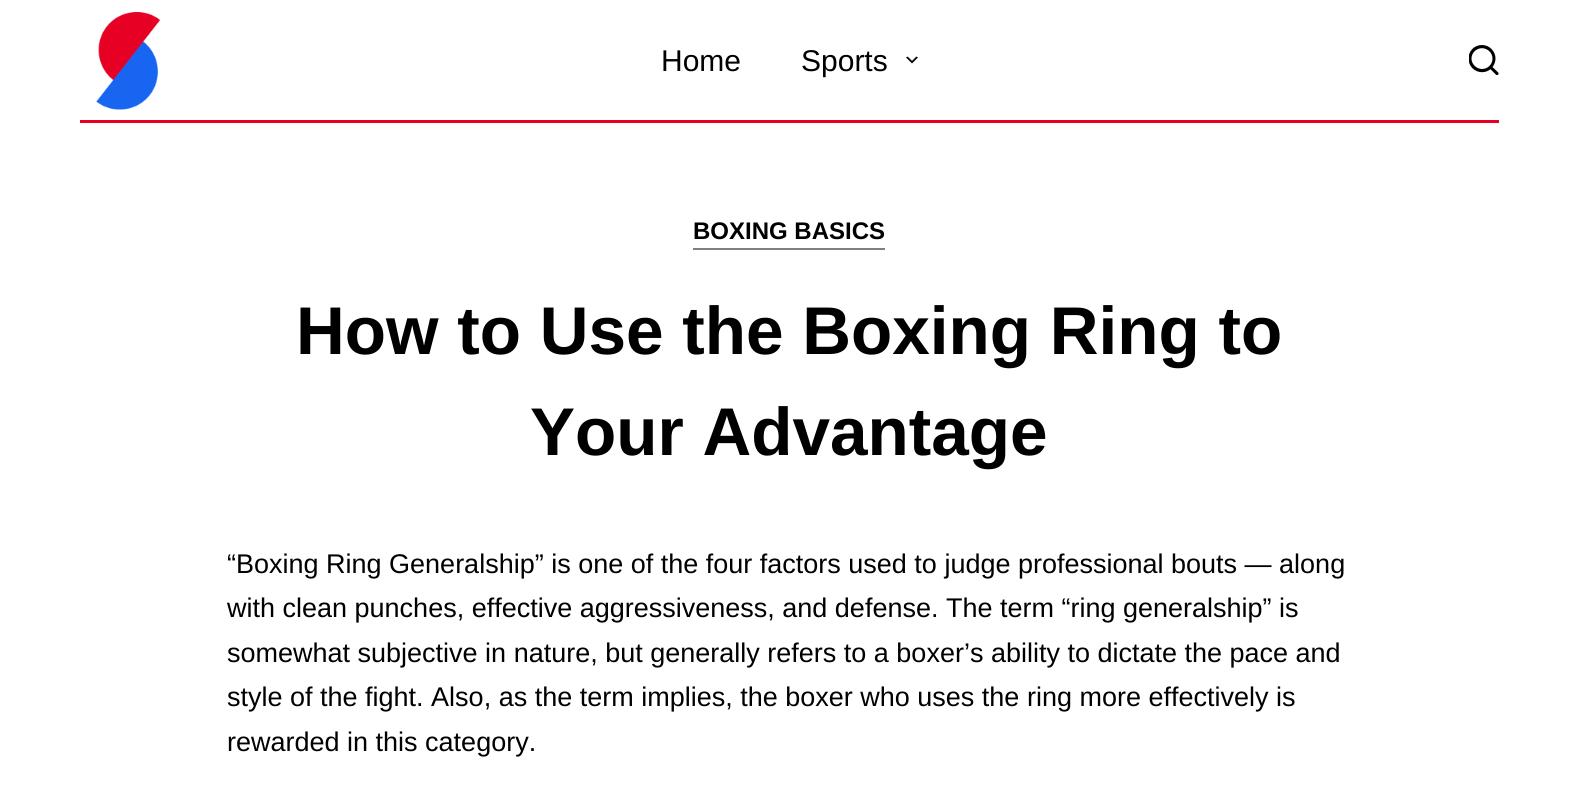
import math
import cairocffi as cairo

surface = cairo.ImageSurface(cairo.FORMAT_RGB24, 1578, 789)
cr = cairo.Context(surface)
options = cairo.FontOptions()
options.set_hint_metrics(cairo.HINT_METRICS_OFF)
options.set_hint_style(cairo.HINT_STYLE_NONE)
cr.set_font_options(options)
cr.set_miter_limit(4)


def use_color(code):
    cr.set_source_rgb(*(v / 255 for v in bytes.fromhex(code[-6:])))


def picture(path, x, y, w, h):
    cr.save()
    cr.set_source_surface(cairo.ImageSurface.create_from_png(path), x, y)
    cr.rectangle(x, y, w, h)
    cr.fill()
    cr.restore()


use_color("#ffffff")
cr.paint()
use_color("#e60023")
cr.rectangle(80, 120, 1419, 3)
cr.fill()
picture("img1.png", 96, 12, 65, 98)
cr.select_font_face("Liberation Sans")
cr.set_font_size(30)
use_color("#000000")
cr.move_to(661, 71)
cr.show_text("Home")
cr.move_to(801, 71)
cr.show_text("Sports")
picture("img2.png", 906, 56, 12, 8)
picture("img3.png", 1469, 45, 30, 30)
cr.select_font_face("Liberation Sans", cairo.FONT_SLANT_NORMAL, cairo.FONT_WEIGHT_BOLD)
cr.set_font_size(24)
cr.move_to(693, 239)
cr.show_text("BOXING BASICS")
use_color("#808080")
cr.rectangle(693, 248, 192, 2)
cr.fill()
cr.set_font_size(67.5)
use_color("#000000")
cr.move_to(296, 354)
cr.show_text("How to Use the Boxing Ring to")
cr.move_to(530, 455)
cr.show_text("Your Advantage")
cr.select_font_face("Liberation Sans")
cr.set_font_size(27)
cr.move_to(227, 573)
cr.show_text("“Boxing Ring Generalship” is one of the four factors used to judge professional bouts — along")
cr.move_to(227, 617)
cr.show_text("with clean punches, effective aggressiveness, and defense. The term “ring generalship” is")
cr.move_to(227, 662)
cr.show_text("somewhat subjective in nature, but generally refers to a boxer’s ability to dictate the pace and")
cr.move_to(227, 706)
cr.show_text("style of the fight. Also, as the term implies, the boxer who uses the ring more effectively is")
cr.move_to(227, 751)
cr.show_text("rewarded in this category.")
surface.write_to_png("result.png")
